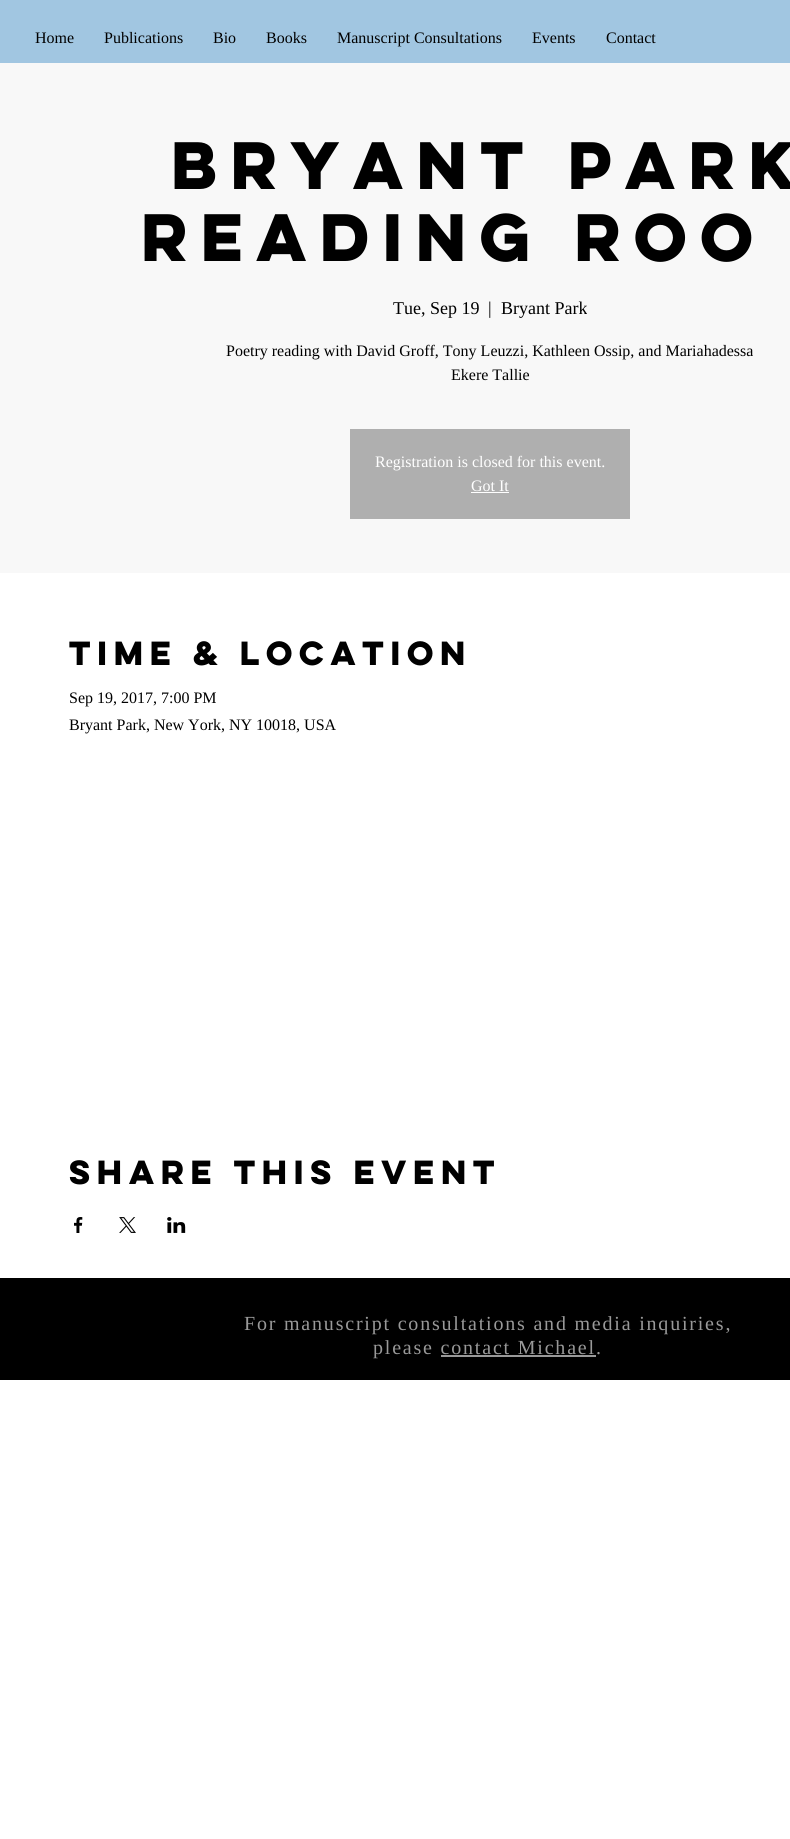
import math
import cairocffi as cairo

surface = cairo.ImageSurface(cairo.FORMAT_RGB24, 790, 1839)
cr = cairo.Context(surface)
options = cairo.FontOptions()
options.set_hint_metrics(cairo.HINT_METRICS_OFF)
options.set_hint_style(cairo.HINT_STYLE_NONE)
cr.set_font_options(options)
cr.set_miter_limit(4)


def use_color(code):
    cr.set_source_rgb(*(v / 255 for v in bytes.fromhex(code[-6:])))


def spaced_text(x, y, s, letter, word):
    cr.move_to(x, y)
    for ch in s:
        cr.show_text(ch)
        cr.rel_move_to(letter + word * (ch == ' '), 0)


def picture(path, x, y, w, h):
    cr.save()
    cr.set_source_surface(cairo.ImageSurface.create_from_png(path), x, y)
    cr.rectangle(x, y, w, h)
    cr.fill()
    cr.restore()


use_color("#ffffff")
cr.paint()
use_color("#a1c6e1")
cr.rectangle(0, 0, 790, 63)
cr.fill()
cr.select_font_face("Liberation Serif")
cr.set_font_size(16)
use_color("#000000")
cr.move_to(35, 43)
cr.show_text("Home")
cr.move_to(104, 43)
cr.show_text("Publications")
cr.move_to(213, 43)
cr.show_text("Bio")
cr.move_to(266, 43)
cr.show_text("Books")
cr.move_to(337, 43)
cr.show_text("Manuscript Consultations")
cr.move_to(532, 43)
cr.show_text("Events")
cr.move_to(606, 43)
cr.show_text("Contact")
use_color("#f8f8f8")
cr.rectangle(0, 63, 790, 510)
cr.fill()
cr.select_font_face("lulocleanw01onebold", cairo.FONT_SLANT_NORMAL, cairo.FONT_WEIGHT_BOLD)
cr.set_font_size(60)
use_color("#000000")
cr.move_to(171, 189)
cr.show_text("Bryant Park")
cr.move_to(141, 261)
cr.show_text("Reading Roo")
cr.select_font_face("Liberation Serif")
cr.set_font_size(18)
cr.move_to(393, 314)
cr.show_text("Tue, Sep 19")
cr.move_to(488, 314)
cr.show_text("|")
cr.move_to(501, 314)
cr.show_text("Bryant Park")
cr.set_font_size(16)
cr.move_to(226, 356)
cr.show_text("Poetry reading with David Groff, Tony Leuzzi, Kathleen Ossip, and Mariahadessa")
cr.move_to(451, 380)
cr.show_text("Ekere Tallie")
use_color("#afafaf")
cr.rectangle(350, 429, 280, 90)
cr.fill()
use_color("#ffffff")
cr.move_to(375, 467)
cr.show_text("Registration is closed for this event.")
cr.move_to(471, 491)
cr.show_text("Got It")
cr.rectangle(471, 492, 38, 1)
cr.fill()
cr.select_font_face("lulocleanw01onebold", cairo.FONT_SLANT_NORMAL, cairo.FONT_WEIGHT_BOLD)
cr.set_font_size(30)
use_color("#000000")
cr.move_to(69, 665)
cr.show_text("Time & Location")
cr.select_font_face("Liberation Serif")
cr.set_font_size(16)
cr.move_to(69, 703)
cr.show_text("Sep 19, 2017, 7:00 PM")
cr.move_to(69, 730)
cr.show_text("Bryant Park, New York, NY 10018, USA")
cr.select_font_face("lulocleanw01onebold", cairo.FONT_SLANT_NORMAL, cairo.FONT_WEIGHT_BOLD)
cr.set_font_size(30)
cr.move_to(69, 1184)
cr.show_text("Share This Event")
picture("img1.png", 74, 1217, 9, 16)
picture("img2.png", 119, 1217, 17, 16)
picture("img3.png", 167, 1217, 19, 16)
cr.rectangle(0, 1278, 790, 102)
cr.fill()
cr.select_font_face("Liberation Serif")
cr.set_font_size(20)
use_color("#999999")
spaced_text(244, 1330, "For manuscript consultations and media inquiries,", 1.8, 0)
spaced_text(373, 1354, "please contact Michael.", 1.8, 0)
cr.rectangle(441, 1355, 155, 2)
cr.fill()
surface.write_to_png("result.png")
